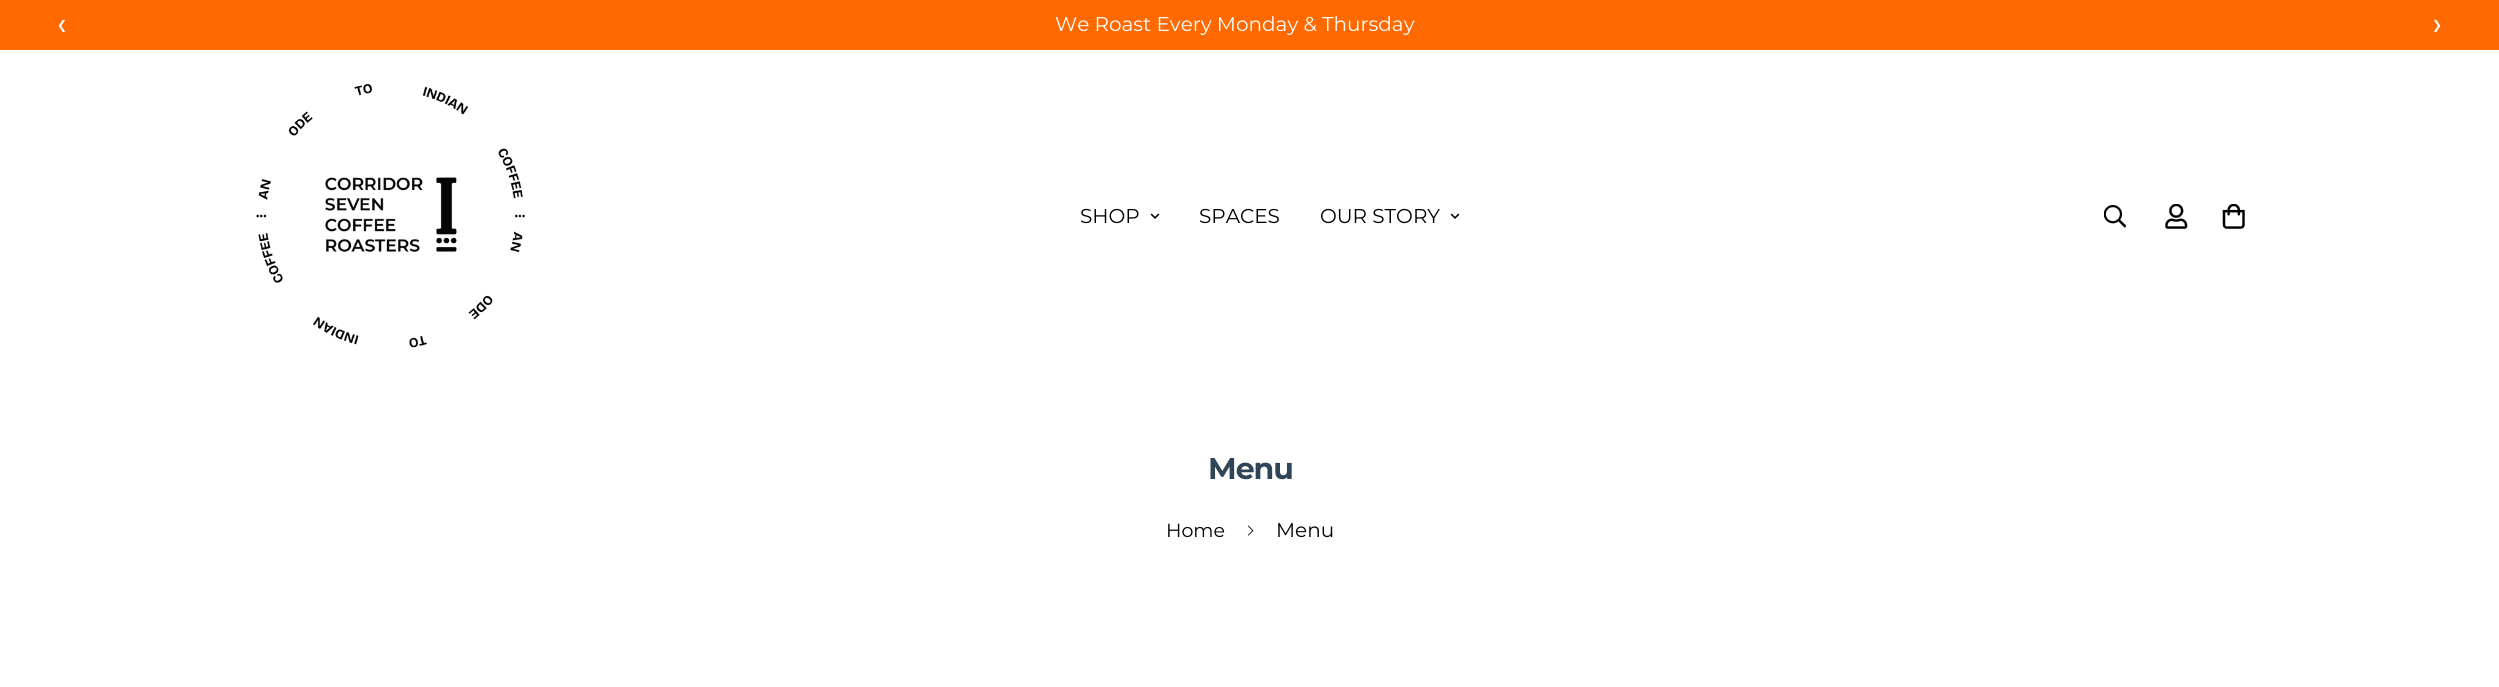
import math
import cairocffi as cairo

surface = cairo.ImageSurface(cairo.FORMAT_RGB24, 2499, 687)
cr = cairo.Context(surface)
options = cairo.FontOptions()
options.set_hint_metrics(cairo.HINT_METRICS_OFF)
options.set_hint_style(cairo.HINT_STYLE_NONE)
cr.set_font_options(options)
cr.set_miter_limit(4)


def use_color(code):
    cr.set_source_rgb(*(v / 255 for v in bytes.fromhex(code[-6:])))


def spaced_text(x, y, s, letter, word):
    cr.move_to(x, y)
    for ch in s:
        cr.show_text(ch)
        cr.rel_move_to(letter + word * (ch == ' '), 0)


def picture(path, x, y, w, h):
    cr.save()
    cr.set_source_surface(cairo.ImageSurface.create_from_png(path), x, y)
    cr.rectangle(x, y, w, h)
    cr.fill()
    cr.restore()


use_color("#ffffff")
cr.paint()
use_color("#ff6900")
cr.rectangle(0, 0, 2499, 50)
cr.fill()
cr.select_font_face("DejaVu Sans")
cr.set_font_size(12)
use_color("#ffffff")
cr.move_to(57, 29)
cr.show_text("❮")
cr.select_font_face("Montserrat")
cr.set_font_size(20)
cr.move_to(1055, 31)
cr.show_text("We Roast Every Monday & Thursday")
cr.select_font_face("DejaVu Sans")
cr.set_font_size(12)
cr.move_to(2432, 29)
cr.show_text("❯")
picture("img1.png", 256, 83, 269, 265)
cr.select_font_face("Montserrat")
cr.set_font_size(20)
use_color("#000000")
cr.move_to(1080, 223)
cr.show_text("SHOP")
picture("img2.png", 1150, 213, 10, 6)
cr.move_to(1199, 223)
cr.show_text("SPACES")
cr.move_to(1320, 223)
cr.show_text("OUR STORY")
picture("img2.png", 1450, 213, 10, 6)
picture("img3.png", 2104, 205, 22, 23)
picture("img4.png", 2165, 204, 23, 25)
picture("img5.png", 2222, 204, 23, 25)
cr.select_font_face("Montserrat", cairo.FONT_SLANT_NORMAL, cairo.FONT_WEIGHT_BOLD)
cr.set_font_size(30)
use_color("#304557")
spaced_text(1208, 479, "Menu", -1, 0)
cr.select_font_face("Montserrat")
cr.set_font_size(19)
use_color("#000000")
cr.move_to(1166, 537)
cr.show_text("Home")
picture("img6.png", 1248, 525, 6, 11)
cr.set_font_size(20)
cr.move_to(1276, 537)
cr.show_text("Menu")
surface.write_to_png("result.png")
